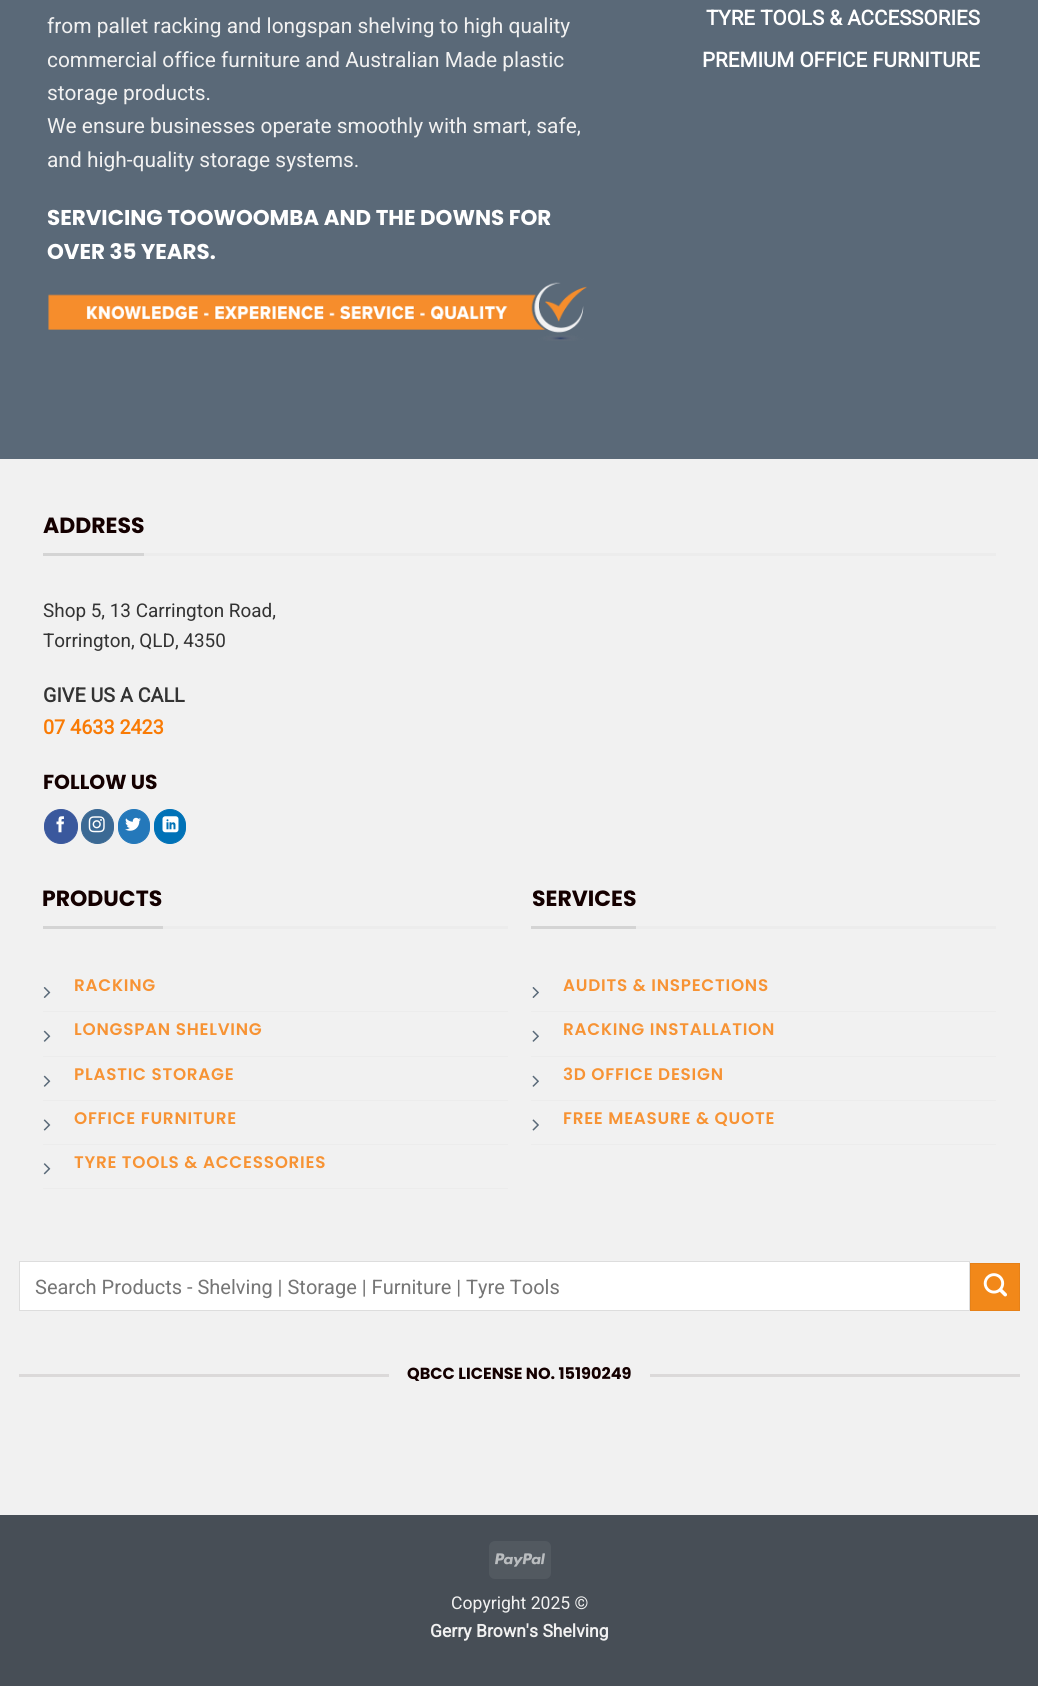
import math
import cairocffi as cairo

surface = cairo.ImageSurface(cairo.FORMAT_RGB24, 1038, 1686)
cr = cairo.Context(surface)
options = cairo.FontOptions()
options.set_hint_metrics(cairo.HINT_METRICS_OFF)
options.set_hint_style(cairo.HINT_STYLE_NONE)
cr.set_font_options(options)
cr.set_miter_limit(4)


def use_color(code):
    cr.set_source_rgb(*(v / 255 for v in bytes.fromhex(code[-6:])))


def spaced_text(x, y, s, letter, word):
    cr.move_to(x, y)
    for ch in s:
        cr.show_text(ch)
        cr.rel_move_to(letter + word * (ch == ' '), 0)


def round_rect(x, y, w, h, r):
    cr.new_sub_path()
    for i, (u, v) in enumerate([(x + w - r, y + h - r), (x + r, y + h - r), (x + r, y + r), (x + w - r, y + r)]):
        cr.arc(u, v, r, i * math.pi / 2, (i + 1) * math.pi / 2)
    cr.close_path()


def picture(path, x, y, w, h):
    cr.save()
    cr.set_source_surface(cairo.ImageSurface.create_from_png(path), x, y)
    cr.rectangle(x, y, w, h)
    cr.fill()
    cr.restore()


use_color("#474e56")
cr.paint()
use_color("#5a6978")
cr.rectangle(0, 0, 1038, 459)
cr.fill()
cr.select_font_face("Roboto")
cr.set_font_size(20.9)
use_color("#f1f1f1")
cr.move_to(47, 33)
cr.show_text("from pallet racking and longspan shelving to high quality")
cr.move_to(47, 67)
cr.show_text("commercial office furniture and Australian Made plastic")
cr.move_to(47, 100)
cr.show_text("storage products.")
cr.move_to(47, 133)
cr.show_text("We ensure businesses operate smoothly with smart, safe,")
cr.move_to(47, 167)
cr.show_text("and high-quality storage systems.")
cr.select_font_face("Poppins", cairo.FONT_SLANT_NORMAL, cairo.FONT_WEIGHT_BOLD)
cr.set_font_size(21.4)
use_color("#ffffff")
cr.move_to(47, 225)
cr.show_text("SERVICING TOOWOOMBA AND THE DOWNS FOR")
cr.move_to(47, 259)
cr.show_text("OVER 35 YEARS.")
picture("img1.png", 48, 282, 539, 59)
cr.select_font_face("Roboto", cairo.FONT_SLANT_NORMAL, cairo.FONT_WEIGHT_BOLD)
cr.set_font_size(20.6)
cr.move_to(706, 25)
cr.show_text("TYRE TOOLS & ACCESSORIES")
cr.move_to(702, 67)
cr.show_text("PREMIUM OFFICE FURNITURE")
use_color("#f1f1f1")
cr.rectangle(0, 459, 1038, 1056)
cr.fill()
use_color("#ececec")
cr.rectangle(144, 553, 852, 3)
cr.fill()
use_color("#d4d4d4")
cr.rectangle(43, 553, 101, 3)
cr.fill()
cr.select_font_face("Poppins", cairo.FONT_SLANT_NORMAL, cairo.FONT_WEIGHT_BOLD)
cr.set_font_size(22)
use_color("#140000")
cr.move_to(43, 533)
cr.show_text("ADDRESS")
cr.select_font_face("Roboto")
cr.set_font_size(18.9)
use_color("#333333")
cr.move_to(43, 617)
cr.show_text("Shop 5, 13 Carrington Road,")
cr.move_to(43, 647)
cr.show_text("Torrington, QLD, 4350")
cr.select_font_face("Roboto", cairo.FONT_SLANT_NORMAL, cairo.FONT_WEIGHT_BOLD)
cr.set_font_size(19.75)
cr.move_to(43, 702)
cr.show_text("GIVE US A CALL")
use_color("#f97b05")
cr.move_to(43, 734)
cr.show_text("07 4633 2423")
cr.select_font_face("Poppins", cairo.FONT_SLANT_NORMAL, cairo.FONT_WEIGHT_BOLD)
cr.set_font_size(20.25)
use_color("#140000")
cr.move_to(43, 789)
cr.show_text("FOLLOW US")
use_color("#3a589d")
round_rect(44.5, 809.5, 33, 34, 16.5)
cr.fill_preserve()
cr.set_line_width(1)
cr.stroke()
picture("img2.png", 56, 816, 8, 17)
use_color("#3b6994")
round_rect(81.5, 809.5, 32, 34, 16)
cr.fill_preserve()
cr.stroke()
picture("img3.png", 88, 816, 17, 17)
use_color("#2478ba")
round_rect(118.5, 809.5, 31, 34, 15.5)
cr.fill_preserve()
cr.stroke()
picture("img4.png", 125, 817, 16, 14)
use_color("#0072b7")
round_rect(154.5, 809.5, 31, 34, 15.5)
cr.fill_preserve()
cr.stroke()
picture("img5.png", 162, 816, 17, 17)
use_color("#ececec")
cr.rectangle(163, 926, 345, 3)
cr.fill()
use_color("#d4d4d4")
cr.rectangle(43, 926, 120, 3)
cr.fill()
cr.set_font_size(22)
use_color("#140000")
cr.move_to(42, 906)
cr.show_text("PRODUCTS")
use_color("#ececec")
cr.rectangle(43, 1011, 465, 1)
cr.fill()
picture("img6.png", 43, 987, 8, 11)
cr.select_font_face("Poppins SemiBold")
cr.set_font_size(16.8)
use_color("#f79334")
spaced_text(74, 991, "RACKING", 0.75, 0)
use_color("#ececec")
cr.rectangle(43, 1056, 465, 1)
cr.fill()
picture("img7.png", 43, 1030, 8, 12)
use_color("#f79334")
spaced_text(74, 1035, "LONGSPAN SHELVING", 0.75, 0)
use_color("#ececec")
cr.rectangle(43, 1100, 465, 1)
cr.fill()
picture("img7.png", 43, 1075, 8, 12)
use_color("#f79334")
spaced_text(74, 1080, "PLASTIC STORAGE", 0.75, 0)
use_color("#ececec")
cr.rectangle(43, 1144, 465, 1)
cr.fill()
picture("img8.png", 43, 1119, 8, 12)
use_color("#f79334")
spaced_text(74, 1124, "OFFICE FURNITURE", 0.75, 0)
use_color("#ececec")
cr.rectangle(43, 1188, 465, 1)
cr.fill()
picture("img9.png", 43, 1163, 8, 12)
use_color("#f79334")
spaced_text(74, 1168, "TYRE TOOLS & ACCESSORIES", 0.75, 0)
use_color("#ececec")
cr.rectangle(636, 926, 360, 3)
cr.fill()
use_color("#d4d4d4")
cr.rectangle(531, 926, 105, 3)
cr.fill()
cr.select_font_face("Poppins", cairo.FONT_SLANT_NORMAL, cairo.FONT_WEIGHT_BOLD)
cr.set_font_size(22)
use_color("#140000")
cr.move_to(532, 906)
cr.show_text("SERVICES")
use_color("#ececec")
cr.rectangle(531, 1011, 465, 1)
cr.fill()
picture("img10.png", 532, 987, 7, 11)
cr.select_font_face("Poppins SemiBold")
cr.set_font_size(16.8)
use_color("#f79334")
spaced_text(563, 991, "AUDITS & INSPECTIONS", 0.75, 0)
use_color("#ececec")
cr.rectangle(531, 1056, 465, 1)
cr.fill()
picture("img11.png", 532, 1030, 7, 12)
use_color("#f79334")
spaced_text(563, 1035, "RACKING INSTALLATION", 0.75, 0)
use_color("#ececec")
cr.rectangle(531, 1100, 465, 1)
cr.fill()
picture("img11.png", 532, 1075, 7, 12)
use_color("#f79334")
spaced_text(563, 1080, "3D OFFICE DESIGN", 0.75, 0)
use_color("#ececec")
cr.rectangle(531, 1144, 465, 1)
cr.fill()
picture("img12.png", 532, 1119, 7, 12)
use_color("#f79334")
spaced_text(563, 1124, "FREE MEASURE & QUOTE", 0.75, 0)
use_color("#ffffff")
cr.rectangle(19.5, 1261.5, 950, 49)
cr.fill_preserve()
use_color("#dddddd")
cr.stroke()
cr.select_font_face("Roboto")
cr.set_font_size(20)
use_color("#757575")
cr.move_to(35, 1294)
cr.show_text("Search Products - Shelving | Storage | Furniture | Tyre Tools")
use_color("#f28819")
cr.rectangle(970.5, 1263.5, 49, 47)
cr.fill_preserve()
use_color("#e68118")
cr.stroke()
picture("img13.png", 983, 1273, 24, 24)
use_color("#dbd9d9")
cr.rectangle(19, 1374, 370, 3)
cr.fill()
cr.select_font_face("Poppins", cairo.FONT_SLANT_NORMAL, cairo.FONT_WEIGHT_BOLD)
cr.set_font_size(16.1)
use_color("#140000")
cr.move_to(407, 1379)
cr.show_text("QBCC LICENSE NO. 15190249")
use_color("#dbd9d9")
cr.rectangle(650, 1374, 370, 3)
cr.fill()
use_color("#525960")
round_rect(489, 1541, 62, 38, 6)
cr.fill()
picture("img14.png", 495, 1553, 50, 14)
cr.select_font_face("Roboto")
cr.set_font_size(17.6)
use_color("#f1f1f1")
cr.move_to(451, 1609)
cr.show_text("Copyright 2025 ©")
cr.select_font_face("Roboto", cairo.FONT_SLANT_NORMAL, cairo.FONT_WEIGHT_BOLD)
cr.move_to(430, 1637)
cr.show_text("Gerry Brown's Shelving")
surface.write_to_png("result.png")
